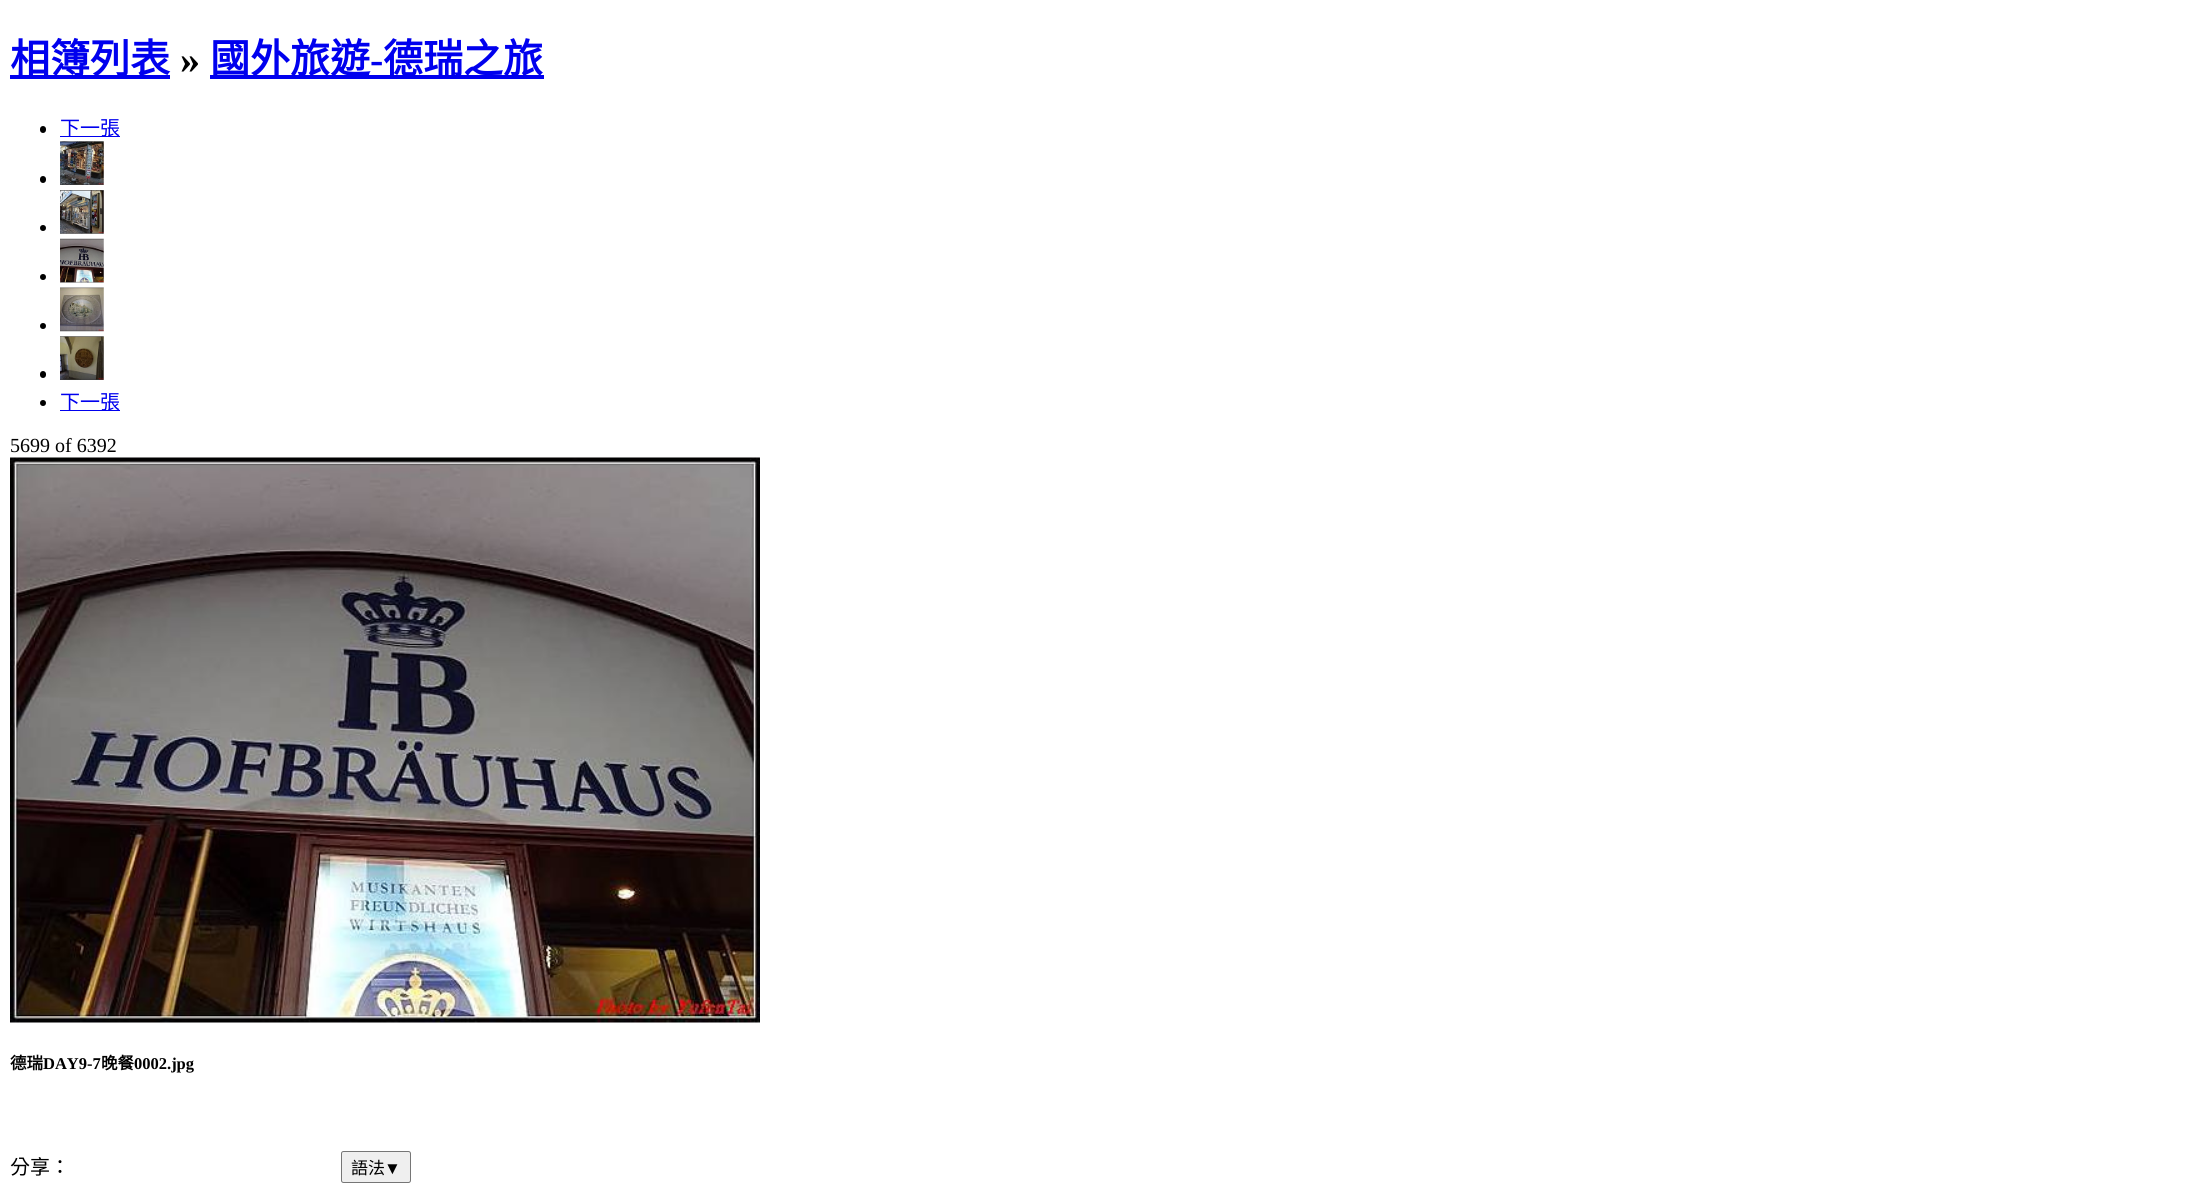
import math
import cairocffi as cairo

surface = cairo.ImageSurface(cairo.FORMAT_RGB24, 2204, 1187)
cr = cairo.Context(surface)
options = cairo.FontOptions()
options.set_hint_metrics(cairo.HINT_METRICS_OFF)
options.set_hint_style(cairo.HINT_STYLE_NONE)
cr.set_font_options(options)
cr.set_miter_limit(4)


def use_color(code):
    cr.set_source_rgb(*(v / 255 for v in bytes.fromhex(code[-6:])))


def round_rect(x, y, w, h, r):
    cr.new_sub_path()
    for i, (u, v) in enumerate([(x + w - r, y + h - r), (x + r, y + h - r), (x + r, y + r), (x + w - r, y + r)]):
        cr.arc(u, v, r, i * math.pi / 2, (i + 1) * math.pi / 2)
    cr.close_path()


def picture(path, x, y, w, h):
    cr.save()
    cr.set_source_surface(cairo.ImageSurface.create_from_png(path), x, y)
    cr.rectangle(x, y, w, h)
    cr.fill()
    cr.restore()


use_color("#ffffff")
cr.paint()
use_color("#0000ee")
cr.rectangle(10, 75, 160, 4)
cr.fill()
cr.select_font_face("Noto Sans CJK TC", cairo.FONT_SLANT_NORMAL, cairo.FONT_WEIGHT_BOLD)
cr.set_font_size(40)
cr.move_to(10, 73)
cr.show_text("相簿列表")
cr.select_font_face("Liberation Serif", cairo.FONT_SLANT_NORMAL, cairo.FONT_WEIGHT_BOLD)
use_color("#000000")
cr.move_to(180, 73)
cr.show_text("»")
use_color("#0000ee")
cr.rectangle(210, 75, 334, 4)
cr.fill()
cr.select_font_face("Noto Sans CJK TC", cairo.FONT_SLANT_NORMAL, cairo.FONT_WEIGHT_BOLD)
cr.move_to(210, 73)
cr.show_text("國外旅遊")
cr.select_font_face("Liberation Serif", cairo.FONT_SLANT_NORMAL, cairo.FONT_WEIGHT_BOLD)
cr.move_to(370, 73)
cr.show_text("-")
cr.select_font_face("Noto Sans CJK TC", cairo.FONT_SLANT_NORMAL, cairo.FONT_WEIGHT_BOLD)
cr.move_to(383, 73)
cr.show_text("德瑞之旅")
use_color("#000000")
round_rect(40, 126, 6, 7, 3)
cr.fill()
use_color("#0000ee")
cr.rectangle(60, 136, 60, 1)
cr.fill()
cr.select_font_face("Noto Sans CJK TC")
cr.set_font_size(20)
cr.move_to(60, 135)
cr.show_text("下一張")
use_color("#000000")
round_rect(40, 176, 6, 7, 3)
cr.fill()
picture("img1.png", 60, 141, 44, 44)
cr.arc(43, 228, 3, 0, 2 * math.pi)
cr.fill()
picture("img2.png", 60, 190, 44, 44)
cr.arc(43, 277, 3, 0, 2 * math.pi)
cr.fill()
picture("img3.png", 60, 238, 44, 45)
cr.arc(43, 326, 3, 0, 2 * math.pi)
cr.fill()
picture("img4.png", 60, 287, 44, 45)
round_rect(40, 371, 6, 7, 3)
cr.fill()
picture("img5.png", 60, 336, 44, 44)
cr.arc(43, 403, 3, 0, 2 * math.pi)
cr.fill()
use_color("#0000ee")
cr.rectangle(60, 410, 60, 1)
cr.fill()
cr.move_to(60, 409)
cr.show_text("下一張")
cr.select_font_face("Liberation Serif")
use_color("#000000")
cr.move_to(10, 452)
cr.show_text("5699 of 6392")
picture("img6.png", 10, 457, 750, 566)
cr.select_font_face("Noto Sans CJK TC", cairo.FONT_SLANT_NORMAL, cairo.FONT_WEIGHT_BOLD)
cr.set_font_size(16.5)
cr.move_to(10, 1069)
cr.show_text("德瑞")
cr.select_font_face("Liberation Serif", cairo.FONT_SLANT_NORMAL, cairo.FONT_WEIGHT_BOLD)
cr.move_to(43, 1069)
cr.show_text("DAY9-7")
cr.select_font_face("Noto Sans CJK TC", cairo.FONT_SLANT_NORMAL, cairo.FONT_WEIGHT_BOLD)
cr.move_to(101, 1069)
cr.show_text("晚餐")
cr.select_font_face("Liberation Serif", cairo.FONT_SLANT_NORMAL, cairo.FONT_WEIGHT_BOLD)
cr.move_to(134, 1069)
cr.show_text("0002.jpg")
cr.select_font_face("Noto Sans CJK TC")
cr.set_font_size(20)
cr.move_to(10, 1174)
cr.show_text("分享：")
use_color("#efefef")
round_rect(341.5, 1151.5, 69, 31, 2)
cr.fill_preserve()
use_color("#767676")
cr.set_line_width(1)
cr.stroke()
cr.set_font_size(17)
use_color("#000000")
cr.move_to(351, 1174)
cr.show_text("語法")
cr.select_font_face("Liberation Sans")
cr.move_to(384, 1174)
cr.show_text("▼")
surface.write_to_png("result.png")
